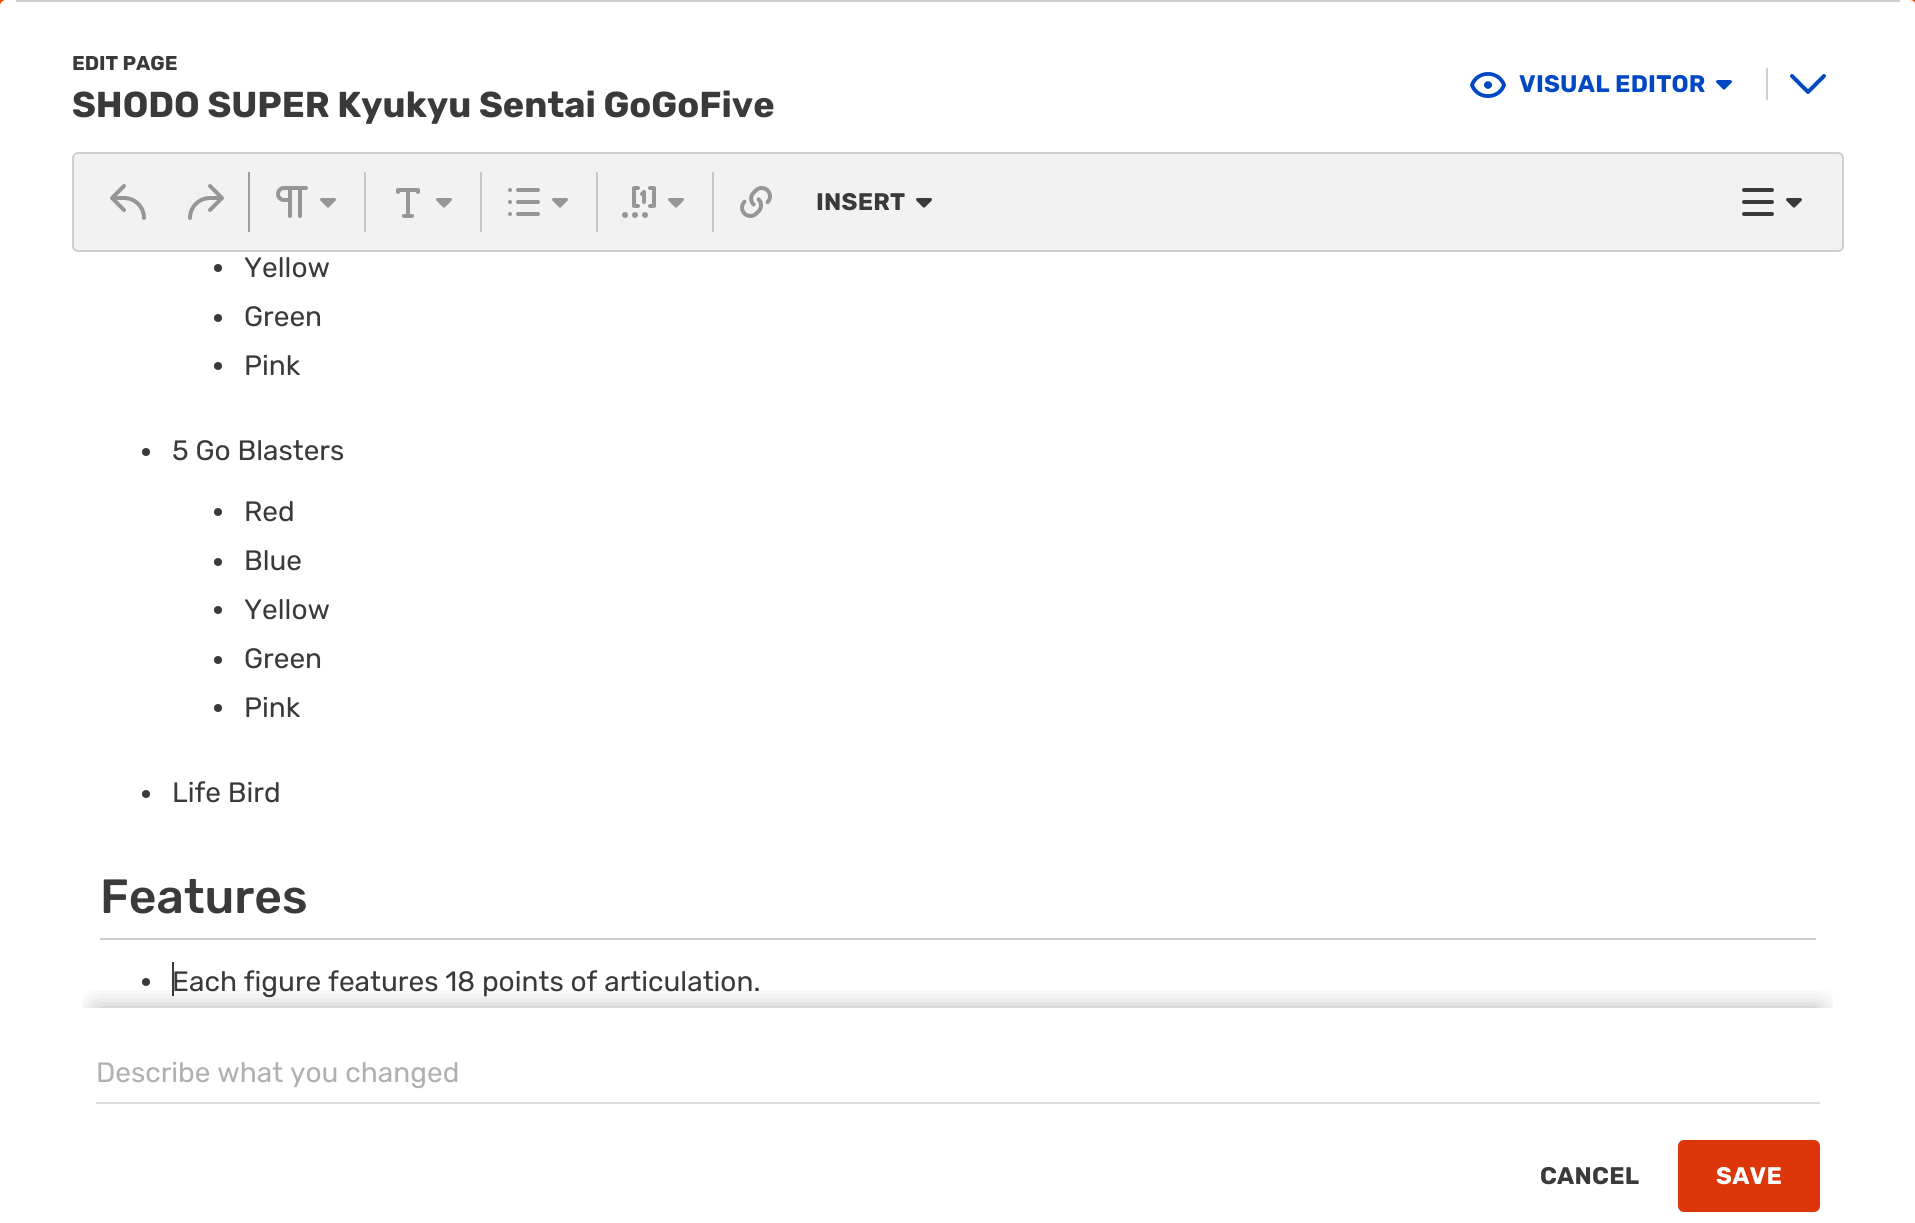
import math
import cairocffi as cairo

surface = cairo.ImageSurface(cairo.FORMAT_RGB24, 1915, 1223)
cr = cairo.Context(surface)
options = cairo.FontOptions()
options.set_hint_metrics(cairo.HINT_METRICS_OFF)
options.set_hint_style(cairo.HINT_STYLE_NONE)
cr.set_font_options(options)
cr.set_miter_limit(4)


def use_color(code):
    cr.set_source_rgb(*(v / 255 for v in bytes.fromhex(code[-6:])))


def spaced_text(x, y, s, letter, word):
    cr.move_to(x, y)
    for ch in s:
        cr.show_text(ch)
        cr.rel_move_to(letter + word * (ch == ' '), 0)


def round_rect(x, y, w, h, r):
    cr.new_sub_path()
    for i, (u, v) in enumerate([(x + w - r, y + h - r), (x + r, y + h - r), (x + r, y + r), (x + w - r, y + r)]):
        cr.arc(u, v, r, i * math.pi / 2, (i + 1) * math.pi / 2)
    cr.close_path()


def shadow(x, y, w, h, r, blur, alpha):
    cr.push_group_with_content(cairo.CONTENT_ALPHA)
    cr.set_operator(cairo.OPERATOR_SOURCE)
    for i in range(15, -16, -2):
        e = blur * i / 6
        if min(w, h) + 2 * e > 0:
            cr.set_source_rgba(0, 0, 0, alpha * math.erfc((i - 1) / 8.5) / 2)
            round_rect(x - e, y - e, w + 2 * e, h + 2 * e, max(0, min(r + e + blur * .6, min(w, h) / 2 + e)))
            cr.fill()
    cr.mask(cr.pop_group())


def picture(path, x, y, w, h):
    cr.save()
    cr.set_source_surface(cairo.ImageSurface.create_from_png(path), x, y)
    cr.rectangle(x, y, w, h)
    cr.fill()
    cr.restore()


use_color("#f14700")
cr.paint()
use_color("#ffffff")
round_rect(0, 0, 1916, 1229, 6)
cr.fill()
cr.select_font_face("Rubik", cairo.FONT_SLANT_NORMAL, cairo.FONT_WEIGHT_BOLD)
cr.set_font_size(20)
use_color("#3a3a3a")
cr.move_to(72, 70)
cr.show_text("EDIT PAGE")
cr.set_font_size(36)
cr.move_to(72, 117)
cr.show_text("SHODO SUPER Kyukyu Sentai GoGoFive")
picture("img1.png", 1470, 72, 36, 26)
cr.set_font_size(24)
use_color("#0148c2")
spaced_text(1519, 92, "VISUAL EDITOR", 0.25, 0)
picture("img2.png", 1716, 80, 16, 10)
use_color("#cecece")
cr.rectangle(1766, 68, 2, 32)
cr.fill()
picture("img3.png", 1790, 74, 36, 20)
use_color("#f2f2f2")
round_rect(73, 153, 1770, 98, 5)
cr.fill_preserve()
use_color("#cecece")
cr.stroke()
use_color("#9d9d9d")
cr.rectangle(248, 172, 2, 60)
cr.fill()
picture("img4.png", 110, 184, 36, 36)
picture("img5.png", 188, 184, 36, 36)
use_color("#c8c8c8")
cr.rectangle(364, 172, 2, 60)
cr.fill()
picture("img6.png", 276, 186, 32, 32)
picture("img7.png", 320, 198, 16, 10)
cr.rectangle(480, 172, 2, 60)
cr.fill()
picture("img8.png", 396, 188, 24, 30)
picture("img7.png", 436, 198, 16, 10)
cr.rectangle(596, 172, 2, 60)
cr.fill()
picture("img9.png", 508, 188, 32, 28)
picture("img7.png", 552, 198, 16, 10)
cr.rectangle(712, 172, 2, 60)
cr.fill()
picture("img10.png", 622, 186, 34, 32)
picture("img7.png", 668, 198, 16, 10)
picture("img11.png", 740, 186, 32, 32)
use_color("#3a3a3a")
spaced_text(816, 210, "INSERT", 0.25, 0)
picture("img12.png", 916, 198, 16, 10)
picture("img13.png", 1742, 188, 32, 28)
picture("img12.png", 1786, 198, 16, 10)
cr.arc(218, 268, 4, 0, 2 * math.pi)
cr.fill()
cr.select_font_face("Rubik")
cr.set_font_size(28)
cr.move_to(244, 277)
cr.show_text("Yellow")
cr.new_path()
cr.arc(218, 318, 4, 0, 2 * math.pi)
cr.fill()
cr.move_to(244, 326)
cr.show_text("Green")
cr.new_path()
cr.arc(218, 366, 4, 0, 2 * math.pi)
cr.fill()
cr.move_to(244, 375)
cr.show_text("Pink")
cr.new_path()
cr.arc(146, 452, 4, 0, 2 * math.pi)
cr.fill()
cr.move_to(172, 460)
cr.show_text("5 Go Blasters")
cr.new_path()
cr.arc(218, 512, 4, 0, 2 * math.pi)
cr.fill()
cr.move_to(244, 521)
cr.show_text("Red")
cr.new_path()
cr.arc(218, 562, 4, 0, 2 * math.pi)
cr.fill()
cr.move_to(244, 570)
cr.show_text("Blue")
cr.new_path()
cr.arc(218, 610, 4, 0, 2 * math.pi)
cr.fill()
cr.move_to(244, 619)
cr.show_text("Yellow")
cr.new_path()
cr.arc(218, 660, 4, 0, 2 * math.pi)
cr.fill()
cr.move_to(244, 668)
cr.show_text("Green")
cr.new_path()
cr.arc(218, 708, 4, 0, 2 * math.pi)
cr.fill()
cr.move_to(244, 717)
cr.show_text("Pink")
cr.new_path()
cr.arc(146, 794, 4, 0, 2 * math.pi)
cr.fill()
cr.move_to(172, 802)
cr.show_text("Life Bird")
use_color("#cecece")
cr.rectangle(100, 938, 1716, 2)
cr.fill()
cr.select_font_face("Rubik Medium")
cr.set_font_size(48)
use_color("#3a3a3a")
cr.move_to(100, 913)
cr.show_text("Features")
cr.new_path()
cr.arc(146, 982, 4, 0, 2 * math.pi)
cr.fill()
cr.select_font_face("Rubik")
cr.set_font_size(28)
cr.move_to(172, 991)
cr.show_text("Each figure features 18 points of articulation.")
cr.rectangle(172, 962, 2, 34)
cr.fill()
cr.save()
cr.rectangle(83, 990, 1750, 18)
cr.clip()
use_color("#000000")
shadow(96, 1008, 1724, 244, 0, 12, 0.3)
cr.restore()
use_color("#cecece")
cr.rectangle(16, 0, 1884, 2)
cr.fill()
use_color("#dddddd")
cr.rectangle(96, 1102, 1724, 2)
cr.fill()
use_color("#b0b0b0")
cr.move_to(96, 1082)
cr.show_text("Describe what you changed")
cr.select_font_face("Rubik", cairo.FONT_SLANT_NORMAL, cairo.FONT_WEIGHT_BOLD)
cr.set_font_size(24)
use_color("#3a3a3a")
spaced_text(1540, 1184, "CANCEL", 0.25, 0)
use_color("#dd360a")
round_rect(1679, 1141, 140, 70, 5)
cr.fill_preserve()
cr.stroke()
use_color("#ffffff")
spaced_text(1716, 1184, "SAVE", 0.25, 0)
surface.write_to_png("result.png")
